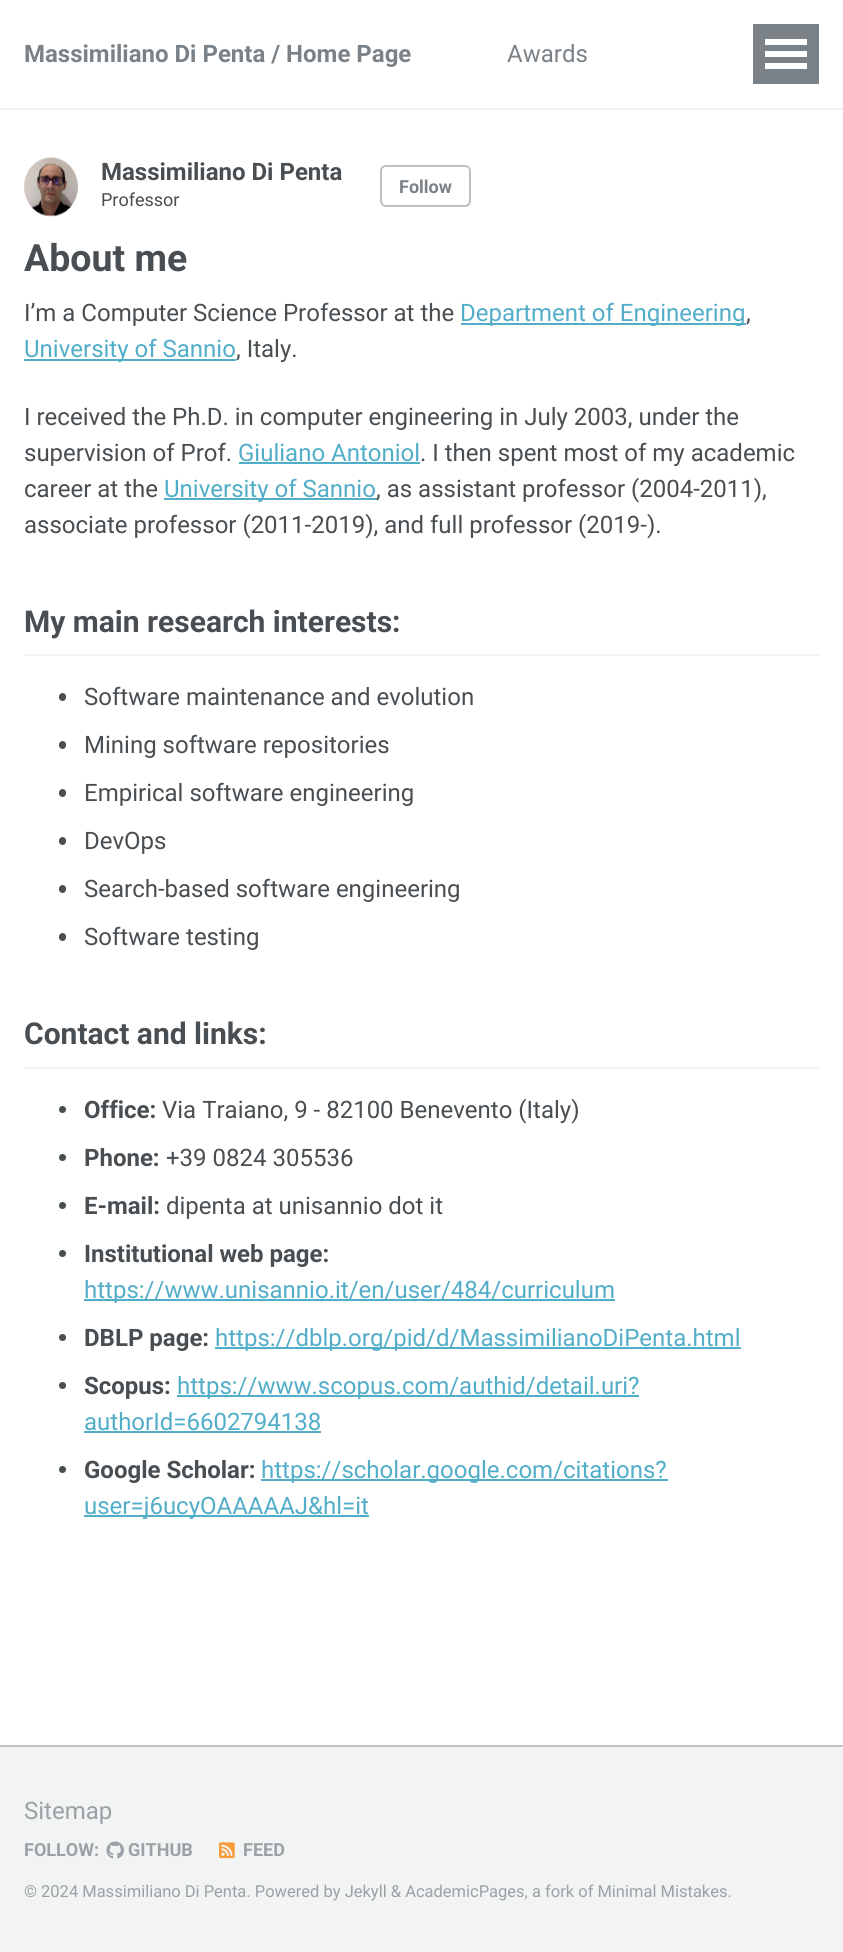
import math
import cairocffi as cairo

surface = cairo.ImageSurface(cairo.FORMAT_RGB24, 843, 1952)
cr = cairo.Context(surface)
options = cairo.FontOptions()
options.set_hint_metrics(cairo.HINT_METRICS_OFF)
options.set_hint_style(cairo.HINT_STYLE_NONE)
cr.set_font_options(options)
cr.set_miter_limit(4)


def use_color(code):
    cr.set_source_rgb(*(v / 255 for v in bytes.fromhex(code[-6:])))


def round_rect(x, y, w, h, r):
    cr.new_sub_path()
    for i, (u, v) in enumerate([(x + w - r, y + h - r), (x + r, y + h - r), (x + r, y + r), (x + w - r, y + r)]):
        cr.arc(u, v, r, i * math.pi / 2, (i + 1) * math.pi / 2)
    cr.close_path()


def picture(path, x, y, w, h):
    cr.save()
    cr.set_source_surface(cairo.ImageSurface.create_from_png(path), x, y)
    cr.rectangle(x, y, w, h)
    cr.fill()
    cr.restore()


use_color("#ffffff")
cr.paint()
use_color("#f2f3f3")
cr.rectangle(0, 108, 843, 2)
cr.fill()
cr.select_font_face("Roboto", cairo.FONT_SLANT_NORMAL, cairo.FONT_WEIGHT_BOLD)
cr.set_font_size(24)
use_color("#7a8288")
cr.move_to(24, 62)
cr.show_text("Massimiliano Di Penta / Home Page")
cr.select_font_face("Roboto")
cr.move_to(507, 62)
cr.show_text("Awards")
cr.rectangle(753, 24, 66, 60)
cr.fill()
use_color("#ffffff")
cr.rectangle(765, 51, 42, 6)
cr.fill()
cr.rectangle(765, 39, 42, 6)
cr.fill()
cr.rectangle(765, 63, 42, 6)
cr.fill()
picture("img1.png", 24, 157, 54, 60)
cr.select_font_face("Roboto", cairo.FONT_SLANT_NORMAL, cairo.FONT_WEIGHT_BOLD)
use_color("#494e52")
cr.move_to(101, 180)
cr.show_text("Massimiliano Di Penta")
cr.select_font_face("Roboto")
cr.set_font_size(18)
cr.move_to(101, 206)
cr.show_text("Professor")
round_rect(381, 166, 89, 40, 5)
use_color("#bdc1c4")
cr.stroke()
cr.select_font_face("Roboto", cairo.FONT_SLANT_NORMAL, cairo.FONT_WEIGHT_BOLD)
use_color("#7a8288")
cr.move_to(399, 193)
cr.show_text("Follow")
cr.set_font_size(37.5)
use_color("#494e52")
cr.move_to(24, 271)
cr.show_text("About me")
cr.select_font_face("Roboto")
cr.set_font_size(24)
cr.move_to(24, 321)
cr.show_text("I’m a Computer Science Professor at the")
use_color("#52adc8")
cr.rectangle(461, 323, 285, 2)
cr.fill()
cr.move_to(460, 321)
cr.show_text("Department of Engineering")
use_color("#494e52")
cr.move_to(746, 321)
cr.show_text(",")
use_color("#52adc8")
cr.rectangle(24, 359, 212, 2)
cr.fill()
cr.move_to(24, 357)
cr.show_text("University of Sannio")
use_color("#494e52")
cr.move_to(236, 357)
cr.show_text(", Italy.")
cr.move_to(24, 425)
cr.show_text("I received the Ph.D. in computer engineering in July 2003, under the")
cr.move_to(24, 461)
cr.show_text("supervision of Prof.")
use_color("#52adc8")
cr.move_to(238, 461)
cr.show_text("Giuliano Antoniol")
cr.rectangle(239, 462, 181, 2)
cr.fill()
use_color("#494e52")
cr.move_to(420, 461)
cr.show_text(". I then spent most of my academic")
cr.move_to(24, 497)
cr.show_text("career at the")
use_color("#52adc8")
cr.rectangle(164, 498, 213, 2)
cr.fill()
cr.move_to(164, 497)
cr.show_text("University of Sannio")
use_color("#494e52")
cr.move_to(376, 497)
cr.show_text(", as assistant professor (2004-2011),")
cr.move_to(24, 533)
cr.show_text("associate professor (2011-2019), and full professor (2019-).")
use_color("#f2f3f3")
cr.rectangle(24, 654, 795, 2)
cr.fill()
cr.select_font_face("Roboto", cairo.FONT_SLANT_NORMAL, cairo.FONT_WEIGHT_BOLD)
cr.set_font_size(30)
use_color("#494e52")
cr.move_to(24, 632)
cr.show_text("My main research interests:")
round_rect(59, 693, 7, 8, 3.5)
cr.fill()
cr.select_font_face("Roboto")
cr.set_font_size(24)
cr.move_to(84, 705)
cr.show_text("Software maintenance and evolution")
round_rect(59, 741, 7, 8, 3.5)
cr.fill()
cr.move_to(84, 753)
cr.show_text("Mining software repositories")
round_rect(59, 789, 7, 8, 3.5)
cr.fill()
cr.move_to(84, 801)
cr.show_text("Empirical software engineering")
round_rect(59, 837, 7, 8, 3.5)
cr.fill()
cr.move_to(84, 849)
cr.show_text("DevOps")
round_rect(59, 885, 7, 8, 3.5)
cr.fill()
cr.move_to(84, 897)
cr.show_text("Search-based software engineering")
round_rect(59, 933, 7, 8, 3.5)
cr.fill()
cr.move_to(84, 945)
cr.show_text("Software testing")
use_color("#f2f3f3")
cr.rectangle(24, 1067, 795, 2)
cr.fill()
cr.select_font_face("Roboto", cairo.FONT_SLANT_NORMAL, cairo.FONT_WEIGHT_BOLD)
cr.set_font_size(30)
use_color("#494e52")
cr.move_to(24, 1044)
cr.show_text("Contact and links:")
cr.new_path()
cr.arc(62.5, 1109.5, 3.5, 0, 2 * math.pi)
cr.fill()
cr.set_font_size(24)
cr.move_to(84, 1118)
cr.show_text("Office:")
cr.select_font_face("Roboto")
cr.move_to(162, 1118)
cr.show_text("Via Traiano, 9 - 82100 Benevento (Italy)")
cr.new_path()
cr.arc(62.5, 1157.5, 3.5, 0, 2 * math.pi)
cr.fill()
cr.select_font_face("Roboto", cairo.FONT_SLANT_NORMAL, cairo.FONT_WEIGHT_BOLD)
cr.move_to(84, 1166)
cr.show_text("Phone:")
cr.select_font_face("Roboto")
cr.move_to(166, 1166)
cr.show_text("+39 0824 305536")
cr.new_path()
cr.arc(62.5, 1205.5, 3.5, 0, 2 * math.pi)
cr.fill()
cr.select_font_face("Roboto", cairo.FONT_SLANT_NORMAL, cairo.FONT_WEIGHT_BOLD)
cr.move_to(84, 1214)
cr.show_text("E-mail:")
cr.select_font_face("Roboto")
cr.move_to(166, 1214)
cr.show_text("dipenta at unisannio dot it")
cr.new_path()
cr.arc(62.5, 1253.5, 3.5, 0, 2 * math.pi)
cr.fill()
cr.select_font_face("Roboto", cairo.FONT_SLANT_NORMAL, cairo.FONT_WEIGHT_BOLD)
cr.move_to(84, 1262)
cr.show_text("Institutional web page:")
use_color("#52adc8")
cr.rectangle(84, 1299, 531, 2)
cr.fill()
cr.select_font_face("Roboto")
cr.move_to(84, 1298)
cr.show_text("https://www.unisannio.it/en/user/484/curriculum")
use_color("#494e52")
cr.new_path()
cr.arc(62.5, 1337.5, 3.5, 0, 2 * math.pi)
cr.fill()
cr.select_font_face("Roboto", cairo.FONT_SLANT_NORMAL, cairo.FONT_WEIGHT_BOLD)
cr.move_to(84, 1346)
cr.show_text("DBLP page:")
use_color("#52adc8")
cr.rectangle(215, 1347, 526, 2)
cr.fill()
cr.select_font_face("Roboto")
cr.move_to(215, 1346)
cr.show_text("https://dblp.org/pid/d/MassimilianoDiPenta.html")
use_color("#494e52")
cr.new_path()
cr.arc(62.5, 1385.5, 3.5, 0, 2 * math.pi)
cr.fill()
cr.select_font_face("Roboto", cairo.FONT_SLANT_NORMAL, cairo.FONT_WEIGHT_BOLD)
cr.move_to(84, 1394)
cr.show_text("Scopus:")
use_color("#52adc8")
cr.rectangle(177, 1395, 462, 2)
cr.fill()
cr.select_font_face("Roboto")
cr.move_to(177, 1394)
cr.show_text("https://www.scopus.com/authid/detail.uri?")
cr.move_to(84, 1430)
cr.show_text("authorId=6602794138")
cr.rectangle(84, 1431, 237, 2)
cr.fill()
use_color("#494e52")
cr.arc(62.5, 1469.5, 3.5, 0, 2 * math.pi)
cr.fill()
cr.select_font_face("Roboto", cairo.FONT_SLANT_NORMAL, cairo.FONT_WEIGHT_BOLD)
cr.move_to(84, 1478)
cr.show_text("Google Scholar:")
use_color("#52adc8")
cr.rectangle(261, 1479, 407, 2)
cr.fill()
cr.select_font_face("Roboto")
cr.move_to(261, 1478)
cr.show_text("https://scholar.google.com/citations?")
cr.rectangle(84, 1515, 285, 2)
cr.fill()
cr.move_to(84, 1514)
cr.show_text("user=j6ucyOAAAAAJ&hl=it")
use_color("#f2f3f3")
cr.rectangle(0, 1747, 843, 205)
cr.fill()
use_color("#bdc1c4")
cr.rectangle(0, 1745, 843, 2)
cr.fill()
use_color("#9ba1a6")
cr.move_to(24, 1819)
cr.show_text("Sitemap")
cr.select_font_face("Roboto", cairo.FONT_SLANT_NORMAL, cairo.FONT_WEIGHT_BOLD)
cr.set_font_size(18)
cr.move_to(24, 1856)
cr.show_text("FOLLOW:")
picture("img2.png", 106, 1841, 18, 18)
cr.move_to(128, 1856)
cr.show_text("GITHUB")
picture("img3.png", 219, 1842, 16, 17)
cr.move_to(243, 1856)
cr.show_text("FEED")
cr.select_font_face("Roboto")
cr.set_font_size(16.5)
cr.move_to(24, 1897)
cr.show_text("© 2024 Massimiliano Di Penta. Powered by Jekyll & AcademicPages, a fork of Minimal Mistakes.")
surface.write_to_png("result.png")
